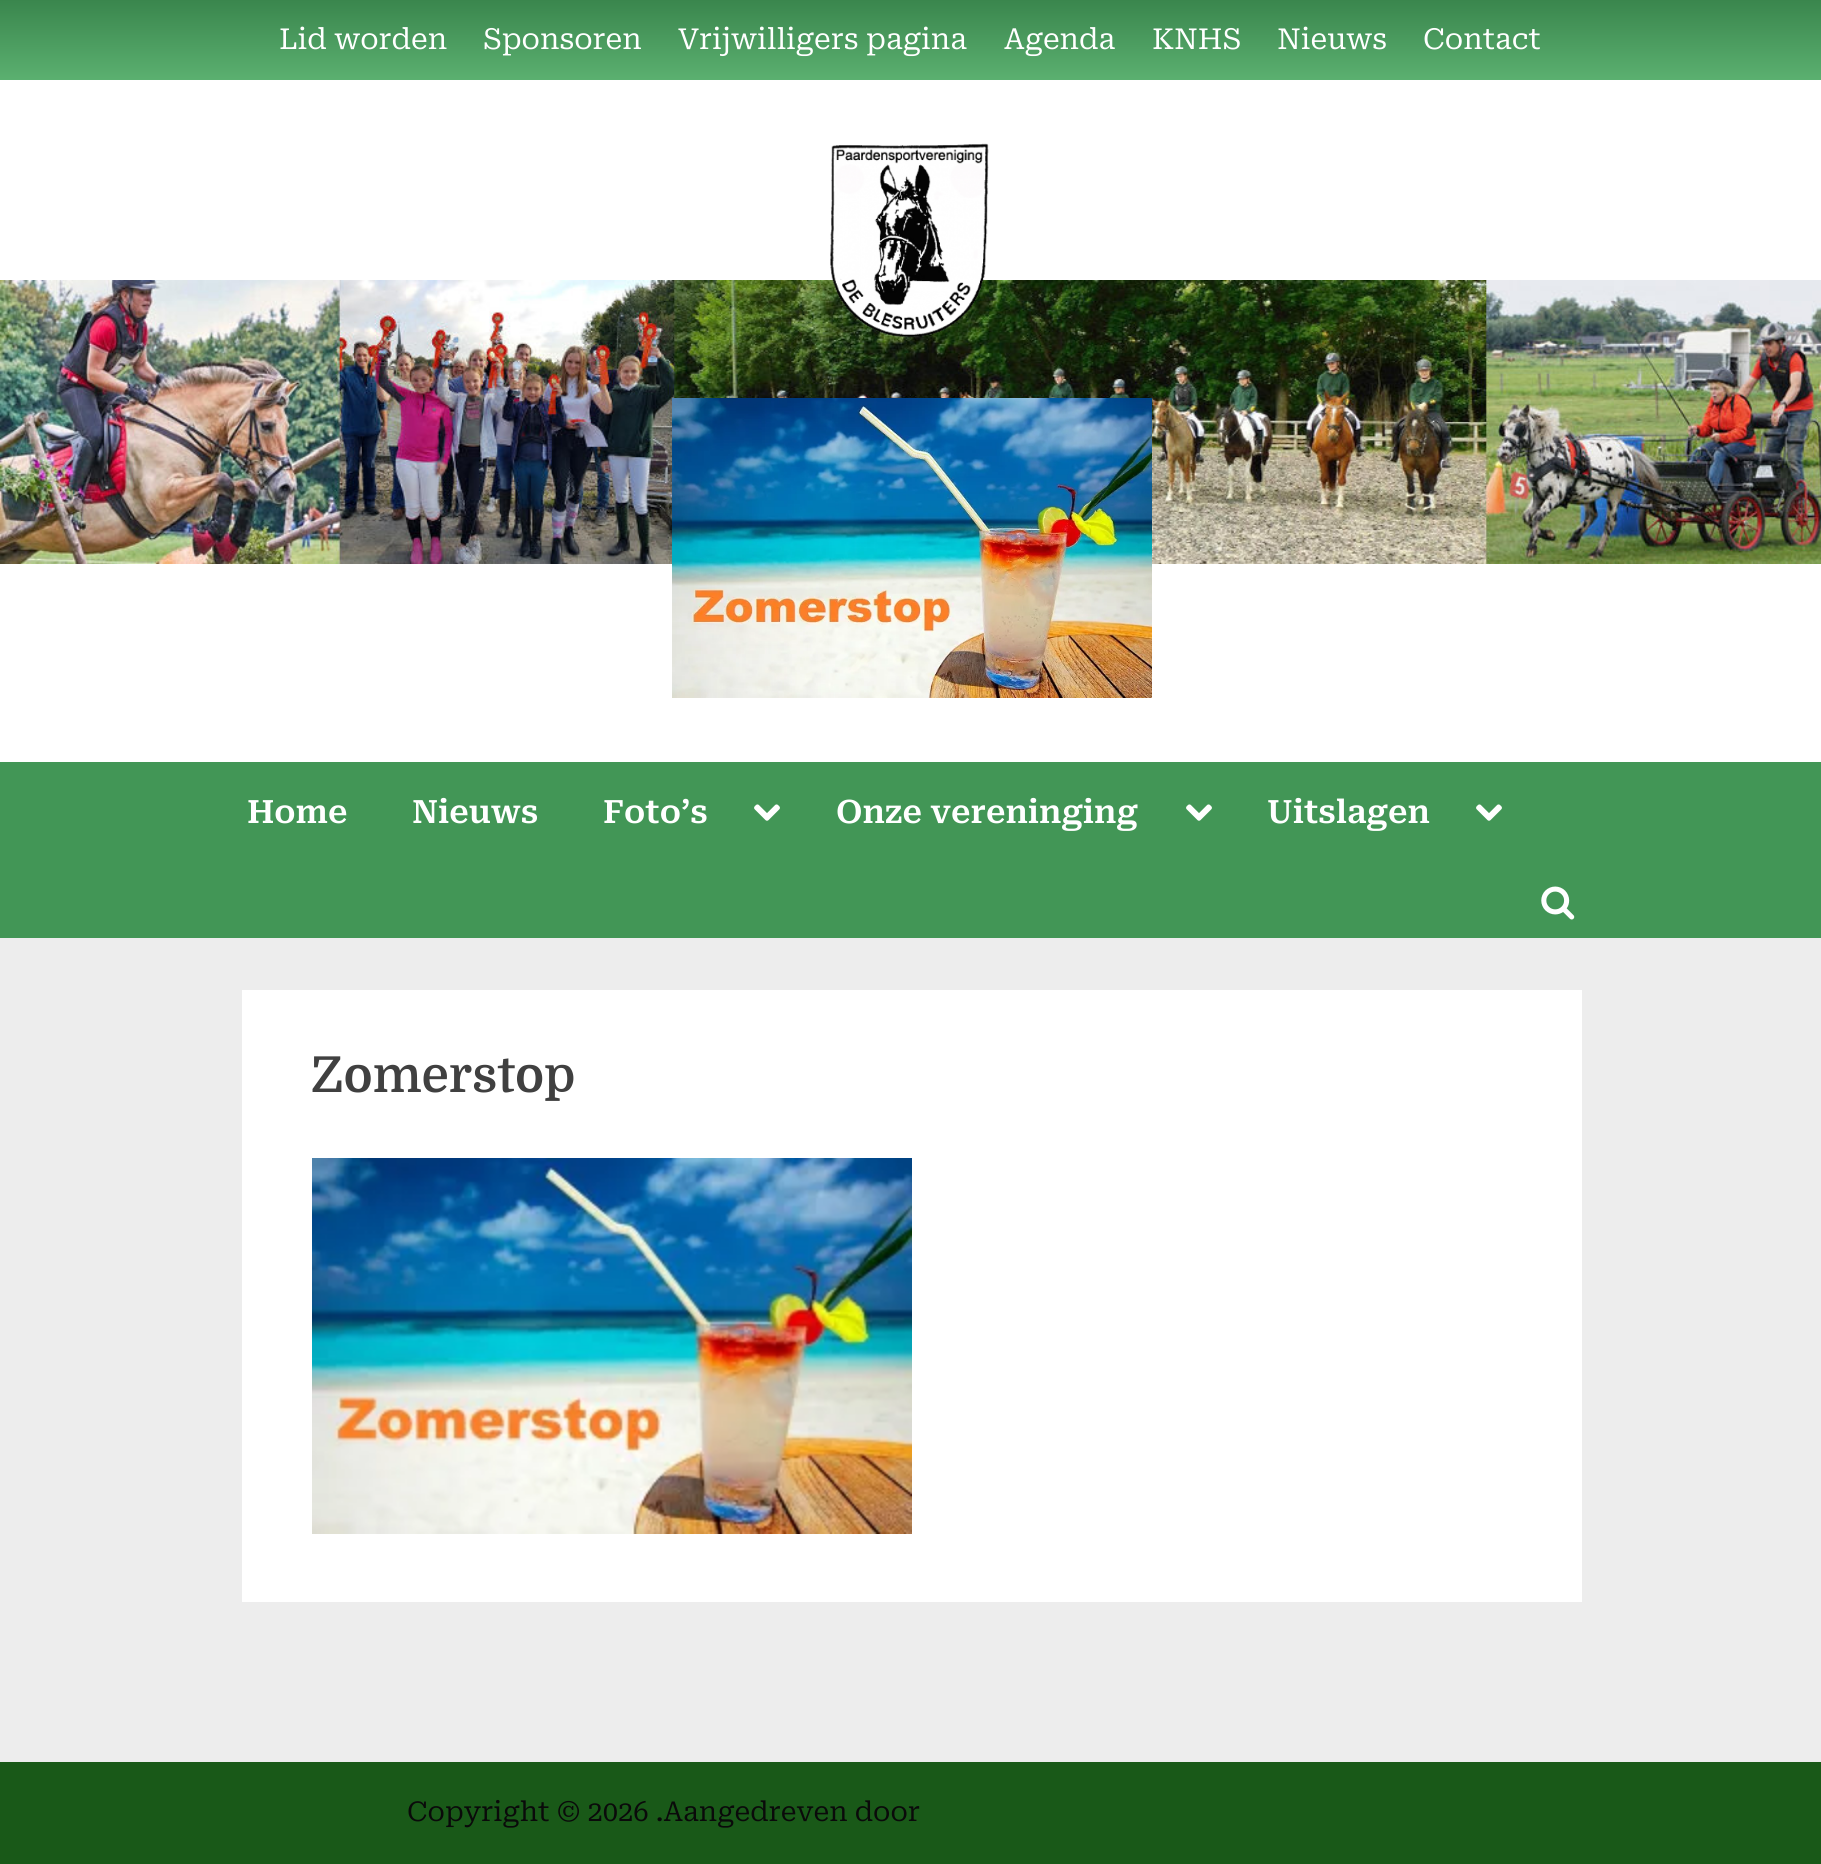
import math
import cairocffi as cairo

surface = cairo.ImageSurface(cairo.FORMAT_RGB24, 1821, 1864)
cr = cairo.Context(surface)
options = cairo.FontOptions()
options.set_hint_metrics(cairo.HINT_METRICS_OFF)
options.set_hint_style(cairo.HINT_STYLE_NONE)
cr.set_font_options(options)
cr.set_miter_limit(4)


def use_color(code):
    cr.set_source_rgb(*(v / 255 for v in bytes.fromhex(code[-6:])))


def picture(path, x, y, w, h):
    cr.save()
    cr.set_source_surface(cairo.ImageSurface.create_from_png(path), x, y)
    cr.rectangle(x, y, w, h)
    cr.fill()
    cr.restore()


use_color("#ededed")
cr.paint()
gradient = cairo.LinearGradient(911, 80, 911, 0)
gradient.add_color_stop_rgba(0, 0.357, 0.69, 0.439, 1)
gradient.add_color_stop_rgba(1, 0.227, 0.525, 0.302, 1)
cr.set_source(gradient)
cr.rectangle(0, 0, 1821, 80)
cr.fill()
cr.select_font_face("Roboto Serif")
cr.set_font_size(28.9)
use_color("#ffffff")
cr.move_to(279, 49)
cr.show_text("Lid worden")
cr.move_to(483, 49)
cr.show_text("Sponsoren")
cr.move_to(678, 49)
cr.show_text("Vrijwilligers pagina")
cr.move_to(1004, 49)
cr.show_text("Agenda")
cr.move_to(1152, 49)
cr.show_text("KNHS")
cr.move_to(1277, 49)
cr.show_text("Nieuws")
cr.move_to(1423, 49)
cr.show_text("Contact")
cr.rectangle(0, 80, 1821, 682)
cr.fill()
picture("img1.png", 0, 280, 1821, 284)
picture("img2.png", 830, 143, 159, 195)
picture("img3.png", 672, 398, 480, 300)
use_color("#429656")
cr.rectangle(0, 762, 1821, 176)
cr.fill()
cr.select_font_face("Roboto Serif SemiBold")
cr.set_font_size(32.25)
use_color("#ffffff")
cr.move_to(247, 823)
cr.show_text("Home")
cr.move_to(412, 823)
cr.show_text("Nieuws")
cr.move_to(603, 823)
cr.show_text("Foto’s")
picture("img4.png", 754, 804, 26, 17)
cr.move_to(836, 823)
cr.show_text("Onze vereninging")
picture("img4.png", 1186, 804, 26, 17)
cr.move_to(1267, 823)
cr.show_text("Uitslagen")
picture("img4.png", 1476, 804, 26, 17)
picture("img5.png", 1541, 886, 34, 34)
cr.rectangle(242, 990, 1340, 612)
cr.fill()
cr.select_font_face("Domine SemiBold")
cr.set_font_size(49.5)
use_color("#404040")
cr.move_to(311, 1092)
cr.show_text("Zomerstop")
picture("img6.png", 312, 1158, 600, 376)
use_color("#195918")
cr.rectangle(0, 1762, 1821, 102)
cr.fill()
cr.select_font_face("Roboto Serif")
cr.set_font_size(27.25)
use_color("#0a0a0a")
cr.move_to(407, 1821)
cr.show_text("Copyright © 2026 .Aangedreven door")
surface.write_to_png("result.png")
